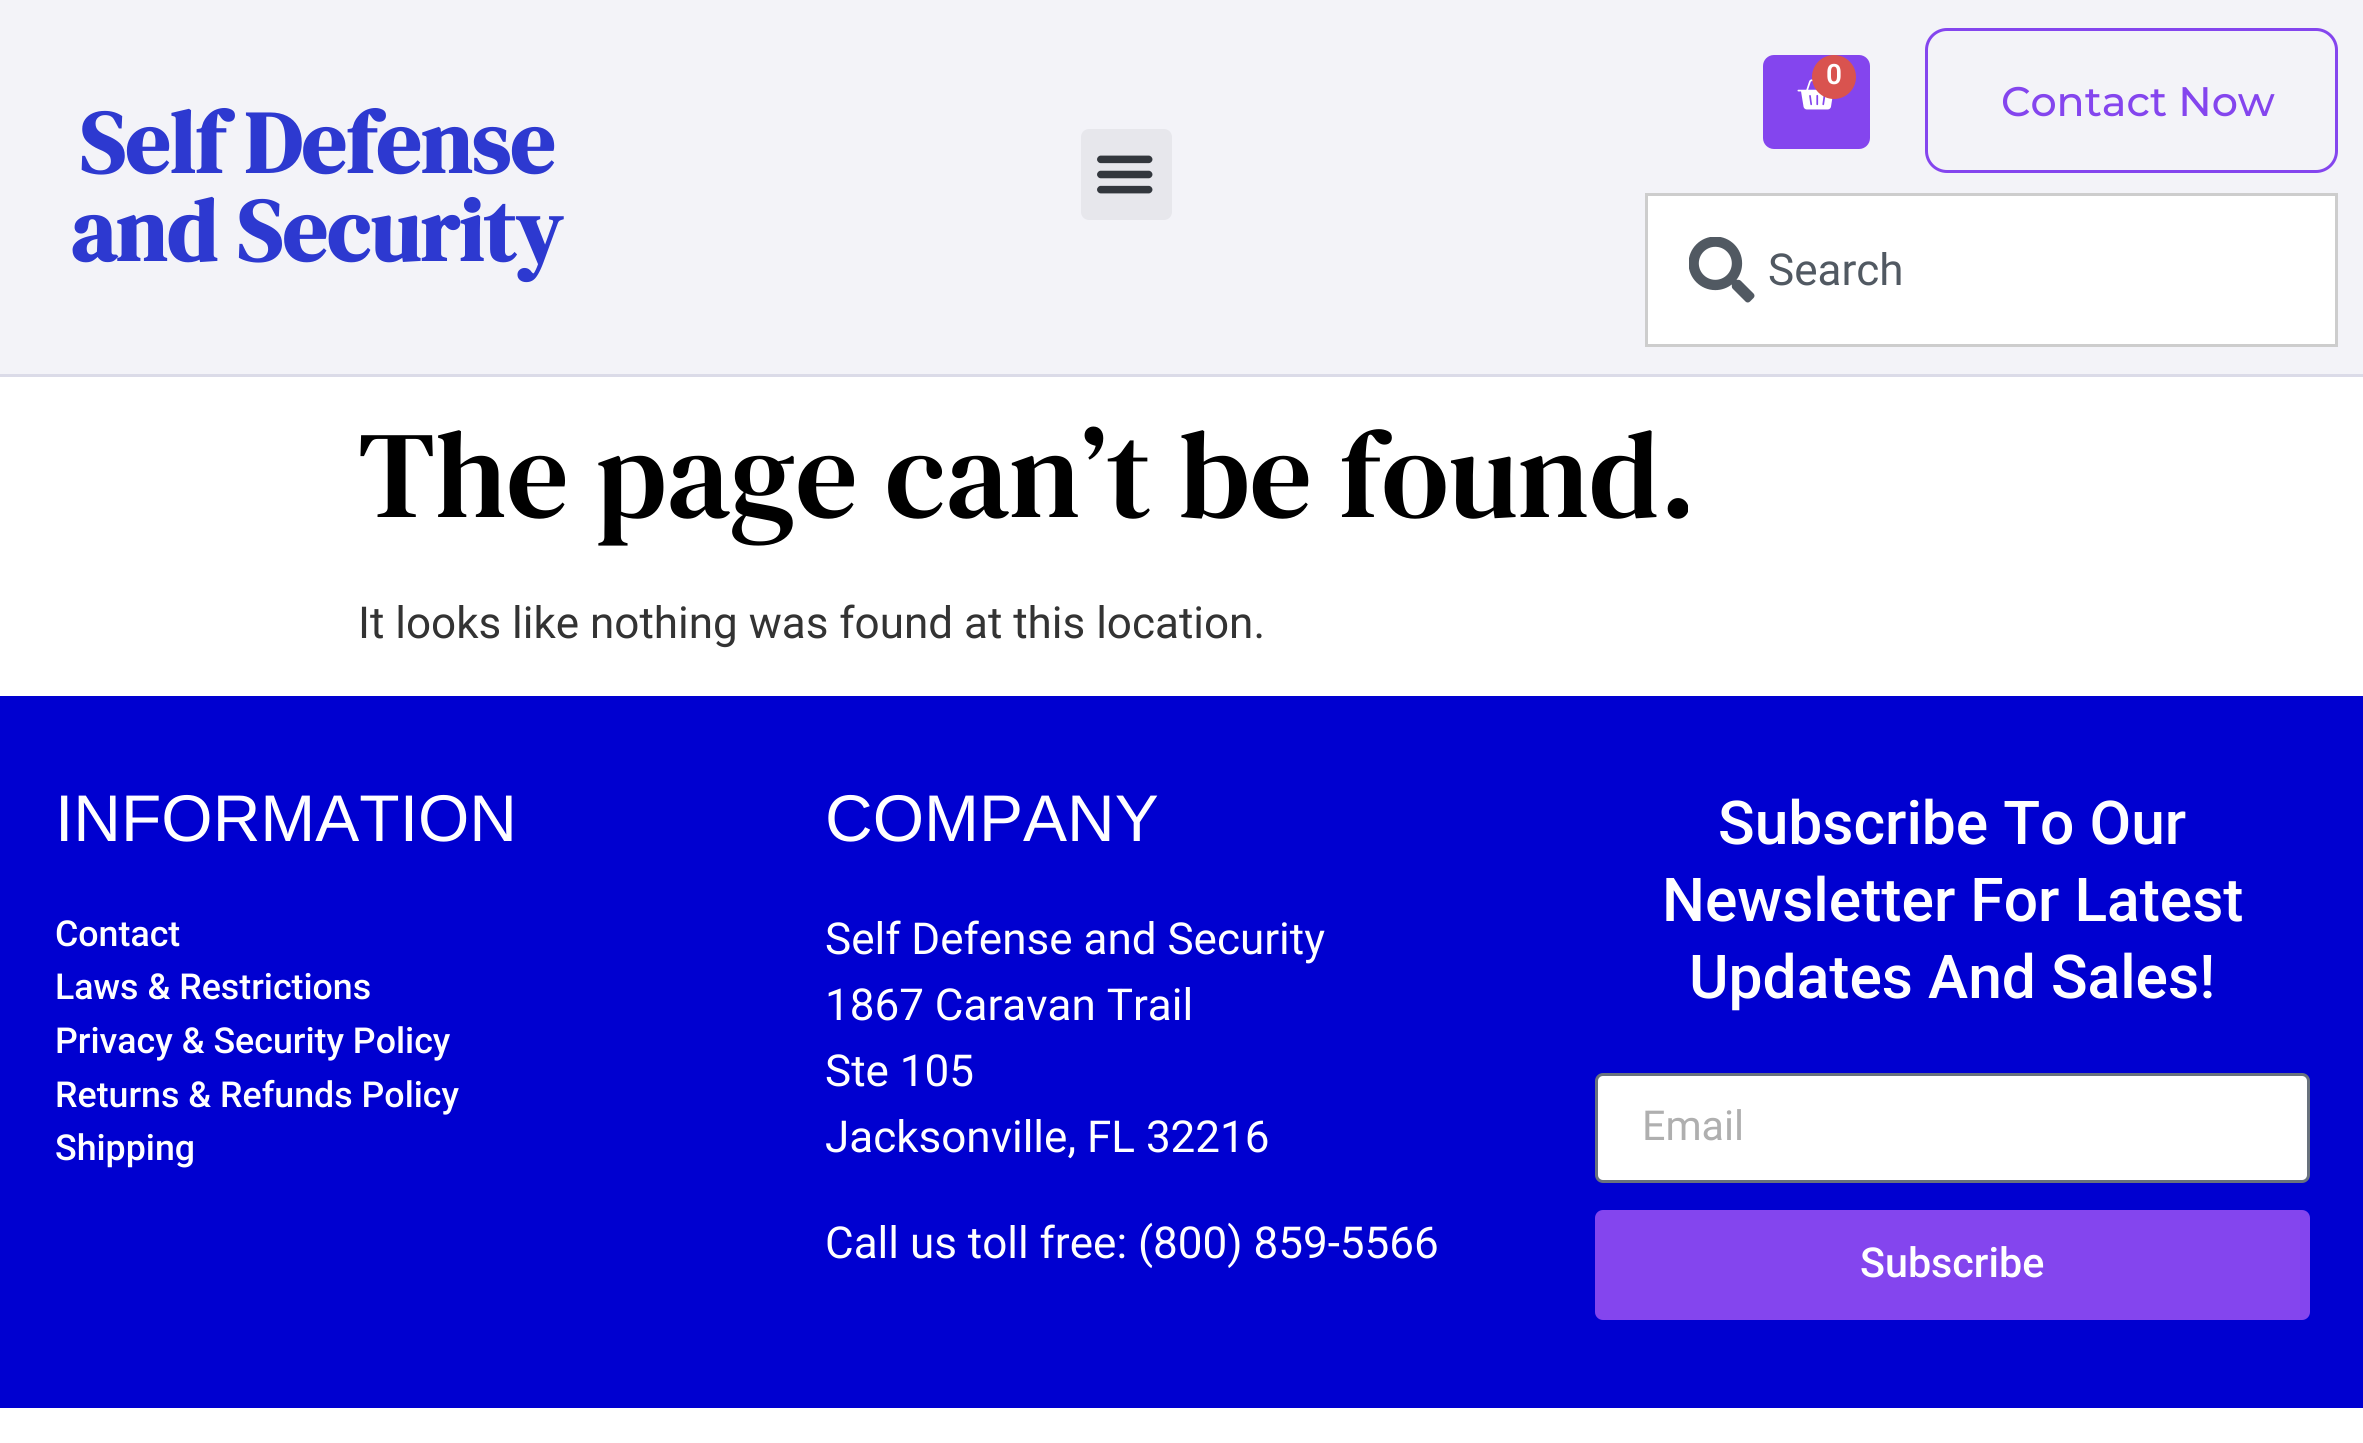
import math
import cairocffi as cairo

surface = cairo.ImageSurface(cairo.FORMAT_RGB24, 2363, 1443)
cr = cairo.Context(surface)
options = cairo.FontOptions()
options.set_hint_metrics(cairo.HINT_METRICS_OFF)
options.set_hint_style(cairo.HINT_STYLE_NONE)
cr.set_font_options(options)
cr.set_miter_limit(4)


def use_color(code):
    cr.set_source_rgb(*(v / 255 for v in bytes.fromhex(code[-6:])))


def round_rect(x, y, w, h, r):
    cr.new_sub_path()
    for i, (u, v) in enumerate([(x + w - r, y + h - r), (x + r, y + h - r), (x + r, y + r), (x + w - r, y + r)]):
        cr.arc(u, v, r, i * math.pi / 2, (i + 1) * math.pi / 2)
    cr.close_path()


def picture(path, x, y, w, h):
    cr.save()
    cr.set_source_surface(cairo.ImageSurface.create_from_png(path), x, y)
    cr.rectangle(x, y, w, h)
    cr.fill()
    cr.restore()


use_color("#ffffff")
cr.paint()
use_color("#f3f3f8")
cr.rectangle(0, 0, 2363, 374)
cr.fill()
use_color("#dbdbe8")
cr.rectangle(0, 374, 2363, 3)
cr.fill()
cr.select_font_face("DM Serif Display", cairo.FONT_SLANT_NORMAL, cairo.FONT_WEIGHT_BOLD)
cr.set_font_size(88)
use_color("#2d39d0")
cr.move_to(79, 173)
cr.show_text("Self Defense")
cr.move_to(70, 261)
cr.show_text("and Security")
use_color("#e7e7ec")
round_rect(1081, 129, 91, 91, 8)
cr.fill()
picture("img1.png", 1097, 155, 56, 39)
use_color("#8445ee")
round_rect(1763, 55, 107, 94, 11)
cr.fill()
picture("img2.png", 1797, 79, 36, 31)
use_color("#d9534f")
cr.arc(1834, 77, 22, 0, 2 * math.pi)
cr.fill()
cr.select_font_face("Roboto SemiBold")
cr.set_font_size(28)
use_color("#ffffff")
cr.move_to(1826, 84)
cr.show_text("0")
round_rect(1926.5, 29.5, 410, 142, 20.5)
use_color("#8445ee")
cr.set_line_width(3)
cr.stroke()
cr.select_font_face("Montserrat Medium")
cr.set_font_size(41.25)
cr.move_to(2001, 116)
cr.show_text("Contact Now")
use_color("#ffffff")
cr.rectangle(1646.5, 194.5, 690, 151)
cr.fill_preserve()
use_color("#cdcdcd")
cr.stroke()
picture("img3.png", 1689, 237, 66, 66)
cr.select_font_face("Roboto")
cr.set_font_size(44)
use_color("#515962")
cr.move_to(1768, 285)
cr.show_text("Search")
cr.select_font_face("DM Serif Text")
cr.set_font_size(123.75)
use_color("#000000")
cr.move_to(358, 517)
cr.show_text("The page can’t be found.")
cr.select_font_face("Roboto")
cr.set_font_size(44)
use_color("#333333")
cr.move_to(358, 638)
cr.show_text("It looks like nothing was found at this location.")
use_color("#0000d0")
cr.rectangle(0, 696, 2363, 712)
cr.fill()
cr.select_font_face("Liberation Sans")
cr.set_font_size(66)
use_color("#ffffff")
cr.move_to(55, 841)
cr.show_text("INFORMATION")
cr.select_font_face("Roboto Medium")
cr.set_font_size(35.75)
cr.move_to(55, 946)
cr.show_text("Contact")
cr.move_to(55, 999)
cr.show_text("Laws & Restrictions")
cr.move_to(55, 1053)
cr.show_text("Privacy & Security Policy")
cr.move_to(55, 1107)
cr.show_text("Returns & Refunds Policy")
cr.move_to(55, 1160)
cr.show_text("Shipping")
cr.select_font_face("Liberation Sans")
cr.set_font_size(66)
cr.move_to(825, 841)
cr.show_text("COMPANY")
cr.select_font_face("Roboto")
cr.set_font_size(44)
cr.move_to(825, 954)
cr.show_text("Self Defense and Security")
cr.move_to(825, 1020)
cr.show_text("1867 Caravan Trail")
cr.move_to(825, 1086)
cr.show_text("Ste 105")
cr.move_to(825, 1152)
cr.show_text("Jacksonville, FL 32216")
cr.move_to(825, 1258)
cr.show_text("Call us toll free: (800) 859-5566")
cr.select_font_face("Roboto Medium")
cr.set_font_size(60.5)
cr.move_to(1718, 844)
cr.show_text("Subscribe To Our")
cr.move_to(1662, 921)
cr.show_text("Newsletter For Latest")
cr.move_to(1689, 998)
cr.show_text("Updates And Sales!")
round_rect(1596.5, 1074.5, 712, 107, 6.5)
cr.fill_preserve()
use_color("#69727d")
cr.stroke()
cr.select_font_face("Roboto")
cr.set_font_size(41.25)
use_color("#afafaf")
cr.move_to(1642, 1140)
cr.show_text("Email")
use_color("#8445ee")
round_rect(1595, 1210, 715, 110, 8)
cr.fill()
cr.select_font_face("Roboto Medium")
use_color("#ffffff")
cr.move_to(1860, 1277)
cr.show_text("Subscribe")
surface.write_to_png("result.png")
